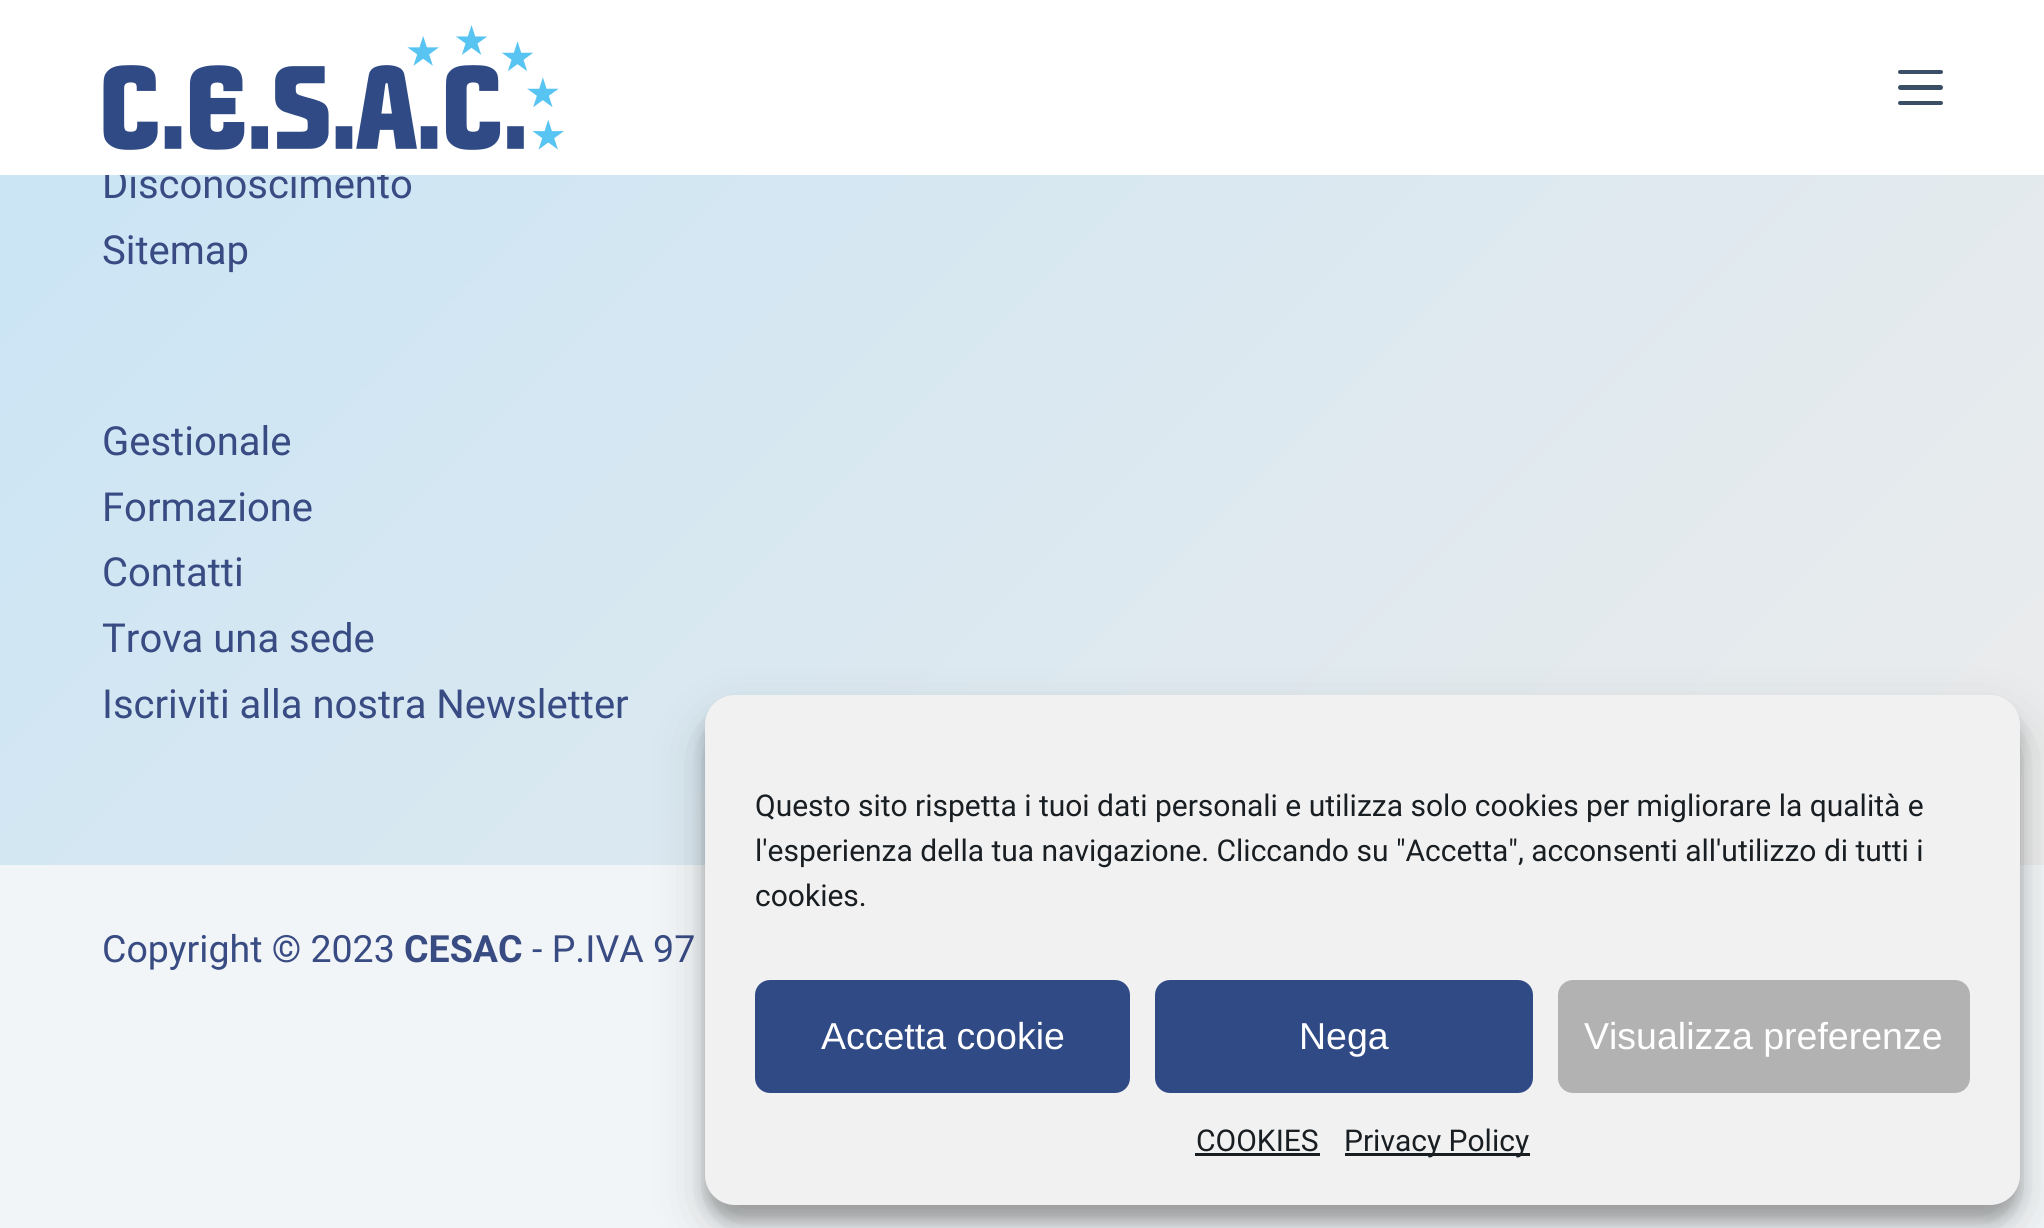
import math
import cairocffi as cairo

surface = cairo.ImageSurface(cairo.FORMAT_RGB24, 2044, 1228)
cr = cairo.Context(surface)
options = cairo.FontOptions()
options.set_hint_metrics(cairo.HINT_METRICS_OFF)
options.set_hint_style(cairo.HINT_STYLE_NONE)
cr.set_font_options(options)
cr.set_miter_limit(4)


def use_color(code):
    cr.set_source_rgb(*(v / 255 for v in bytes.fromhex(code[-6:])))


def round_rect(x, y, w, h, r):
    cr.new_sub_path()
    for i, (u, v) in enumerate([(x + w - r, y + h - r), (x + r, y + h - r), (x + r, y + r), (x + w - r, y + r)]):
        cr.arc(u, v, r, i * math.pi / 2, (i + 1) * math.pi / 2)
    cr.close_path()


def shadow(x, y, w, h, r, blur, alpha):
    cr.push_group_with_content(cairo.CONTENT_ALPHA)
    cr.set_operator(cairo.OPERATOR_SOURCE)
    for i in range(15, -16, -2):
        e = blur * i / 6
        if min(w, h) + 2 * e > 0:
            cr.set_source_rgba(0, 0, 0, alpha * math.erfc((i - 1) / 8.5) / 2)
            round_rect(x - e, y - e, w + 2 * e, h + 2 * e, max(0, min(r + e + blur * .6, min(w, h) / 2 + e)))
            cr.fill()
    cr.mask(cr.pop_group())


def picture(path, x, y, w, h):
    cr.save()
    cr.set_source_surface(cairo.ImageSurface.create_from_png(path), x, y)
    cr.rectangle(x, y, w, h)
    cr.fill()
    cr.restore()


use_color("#f2f5f7")
cr.paint()
gradient = cairo.LinearGradient(-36, -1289, 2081, 829)
gradient.add_color_stop_rgba(0, 0.722, 0.882, 0.98, 1)
gradient.add_color_stop_rgba(1, 0.925, 0.925, 0.925, 1)
cr.set_source(gradient)
cr.rectangle(0, 175, 2044, 690)
cr.fill()
cr.select_font_face("Roboto")
cr.set_font_size(40)
use_color("#384b83")
cr.move_to(102, 198)
cr.show_text("Disconoscimento")
use_color("#ffffff")
cr.rectangle(0, 0, 2044, 175)
cr.fill()
picture("img1.png", 103, 25, 461, 125)
use_color("#3a4f66")
round_rect(1898, 70, 45, 4, 2)
cr.fill()
round_rect(1898, 85, 45, 5, 2.5)
cr.fill()
round_rect(1898, 101, 45, 4, 2)
cr.fill()
use_color("#384b83")
cr.move_to(102, 264)
cr.show_text("Sitemap")
cr.move_to(102, 455)
cr.show_text("Gestionale")
cr.move_to(102, 521)
cr.show_text("Formazione")
cr.move_to(102, 586)
cr.show_text("Contatti")
cr.move_to(102, 652)
cr.show_text("Trova una sede")
cr.move_to(102, 718)
cr.show_text("Iscriviti alla nostra Newsletter")
cr.set_font_size(37.5)
cr.move_to(102, 962)
cr.show_text("Copyright © 2023")
cr.select_font_face("Roboto", cairo.FONT_SLANT_NORMAL, cairo.FONT_WEIGHT_BOLD)
cr.move_to(404, 962)
cr.show_text("CESAC")
cr.select_font_face("Roboto")
cr.move_to(532, 962)
cr.show_text("- P.IVA 97")
use_color("#000000")
shadow(705, 710, 1315, 510, 30, 7.5, 0.23)
shadow(705, 720, 1315, 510, 30, 25, 0.19)
use_color("#f1f1f1")
round_rect(705, 695, 1315, 510, 30)
cr.fill()
cr.set_font_size(30)
use_color("#191e23")
cr.move_to(755, 816)
cr.show_text("Questo sito rispetta i tuoi dati personali e utilizza solo cookies per migliorare la qualità e")
cr.move_to(755, 861)
cr.show_text("l'esperienza della tua navigazione. Cliccando su \"Accetta\", acconsenti all'utilizzo di tutti i")
cr.move_to(755, 906)
cr.show_text("cookies.")
use_color("#304a85")
round_rect(756.5, 981.5, 372, 110, 13.5)
cr.fill_preserve()
cr.set_line_width(3)
cr.stroke()
cr.select_font_face("Liberation Sans")
cr.set_font_size(37.5)
use_color("#ffffff")
cr.move_to(821, 1049)
cr.show_text("Accetta cookie")
use_color("#304a85")
round_rect(1156.5, 981.5, 375, 110, 13.5)
cr.fill_preserve()
cr.stroke()
use_color("#ffffff")
cr.move_to(1299, 1049)
cr.show_text("Nega")
use_color("#b2b2b2")
round_rect(1559.5, 981.5, 409, 110, 13.5)
cr.fill_preserve()
cr.stroke()
use_color("#ffffff")
cr.move_to(1584, 1049)
cr.show_text("Visualizza preferenze")
cr.select_font_face("Roboto")
cr.set_font_size(30)
use_color("#191e23")
cr.move_to(1196, 1151)
cr.show_text("COOKIES")
cr.rectangle(1195, 1153, 125, 3)
cr.fill()
cr.rectangle(1345, 1153, 185, 3)
cr.fill()
cr.move_to(1344, 1151)
cr.show_text("Privacy Policy")
surface.write_to_png("result.png")
